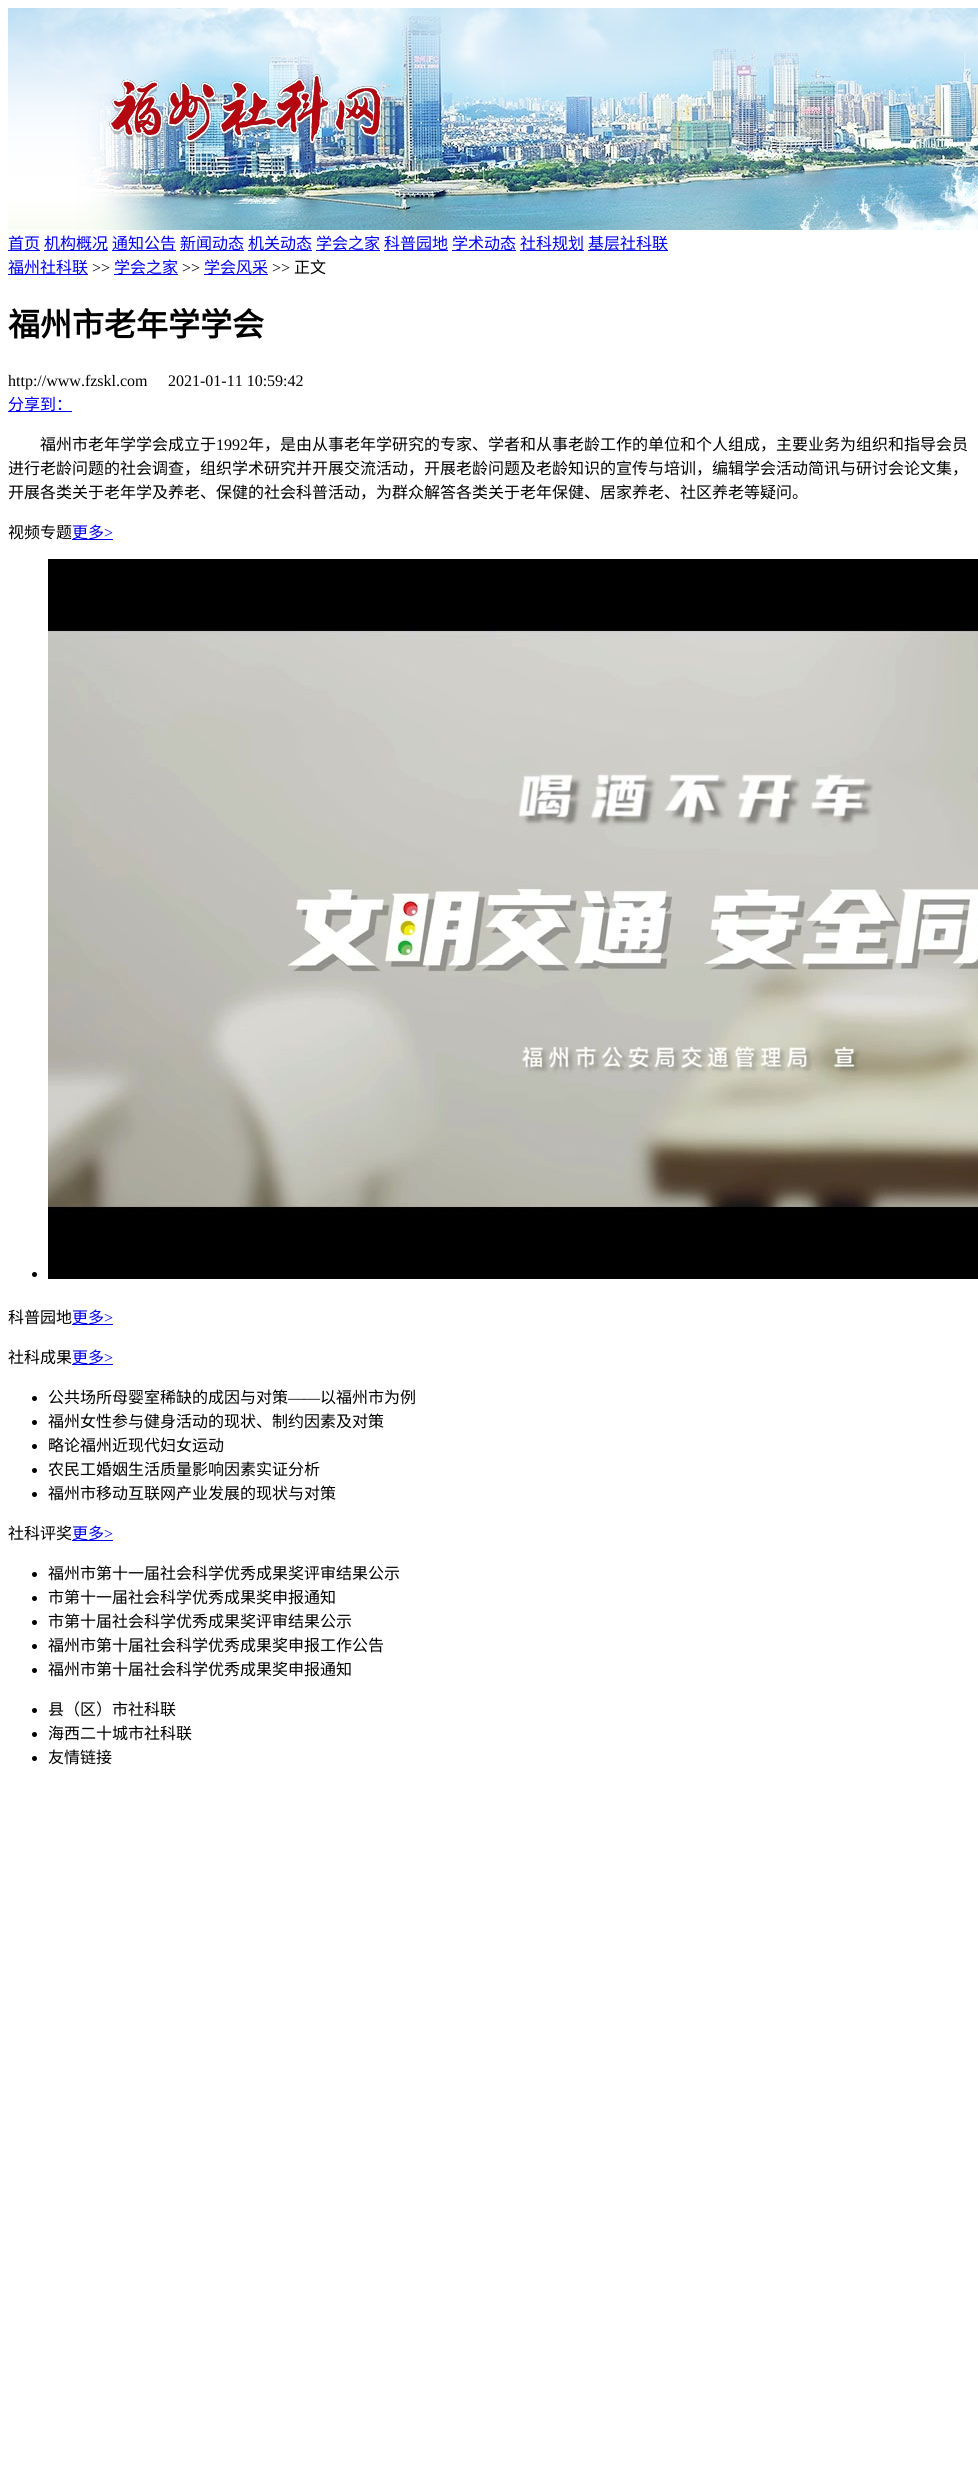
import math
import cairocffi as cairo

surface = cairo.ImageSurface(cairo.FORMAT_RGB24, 978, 2478)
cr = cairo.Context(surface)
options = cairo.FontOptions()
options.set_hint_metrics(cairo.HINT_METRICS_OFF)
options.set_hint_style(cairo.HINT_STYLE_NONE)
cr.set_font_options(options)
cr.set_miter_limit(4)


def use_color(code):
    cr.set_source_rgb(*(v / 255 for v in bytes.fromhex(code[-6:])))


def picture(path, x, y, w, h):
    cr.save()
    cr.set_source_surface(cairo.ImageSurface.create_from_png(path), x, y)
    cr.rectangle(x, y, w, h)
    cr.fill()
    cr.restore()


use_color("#ffffff")
cr.paint()
picture("img1.png", 8, 8, 970, 222)
picture("img2.png", 109, 74, 273, 71)
use_color("#0000ee")
cr.rectangle(8, 250, 32, 1)
cr.fill()
cr.select_font_face("Noto Sans CJK SC")
cr.set_font_size(16)
cr.move_to(8, 249)
cr.show_text("首页")
cr.rectangle(44, 250, 64, 1)
cr.fill()
cr.move_to(44, 249)
cr.show_text("机构概况")
cr.rectangle(112, 250, 64, 1)
cr.fill()
cr.move_to(112, 249)
cr.show_text("通知公告")
cr.rectangle(180, 250, 64, 1)
cr.fill()
cr.move_to(180, 249)
cr.show_text("新闻动态")
cr.rectangle(248, 250, 64, 1)
cr.fill()
cr.move_to(248, 249)
cr.show_text("机关动态")
cr.rectangle(316, 250, 64, 1)
cr.fill()
cr.move_to(316, 249)
cr.show_text("学会之家")
cr.rectangle(384, 250, 64, 1)
cr.fill()
cr.move_to(384, 249)
cr.show_text("科普园地")
cr.rectangle(452, 250, 64, 1)
cr.fill()
cr.move_to(452, 249)
cr.show_text("学术动态")
cr.rectangle(520, 250, 64, 1)
cr.fill()
cr.move_to(520, 249)
cr.show_text("社科规划")
cr.rectangle(588, 250, 80, 1)
cr.fill()
cr.move_to(588, 249)
cr.show_text("基层社科联")
cr.rectangle(8, 274, 80, 1)
cr.fill()
cr.move_to(8, 273)
cr.show_text("福州社科联")
cr.select_font_face("Liberation Serif")
use_color("#000000")
cr.move_to(92, 273)
cr.show_text(">>")
use_color("#0000ee")
cr.rectangle(114, 274, 64, 1)
cr.fill()
cr.select_font_face("Noto Sans CJK SC")
cr.move_to(114, 273)
cr.show_text("学会之家")
cr.select_font_face("Liberation Serif")
use_color("#000000")
cr.move_to(182, 273)
cr.show_text(">>")
use_color("#0000ee")
cr.rectangle(204, 274, 64, 1)
cr.fill()
cr.select_font_face("Noto Sans CJK SC")
cr.move_to(204, 273)
cr.show_text("学会风采")
cr.select_font_face("Liberation Serif")
use_color("#000000")
cr.move_to(272, 273)
cr.show_text(">>")
cr.select_font_face("Noto Sans CJK SC")
cr.move_to(294, 273)
cr.show_text("正文")
cr.select_font_face("Noto Sans CJK SC", cairo.FONT_SLANT_NORMAL, cairo.FONT_WEIGHT_BOLD)
cr.set_font_size(32)
cr.move_to(8, 336)
cr.show_text("福州市老年学学会")
cr.select_font_face("Liberation Serif")
cr.set_font_size(16)
cr.move_to(8, 386)
cr.show_text("http://www.fzskl.com")
cr.move_to(168, 386)
cr.show_text("2021-01-11 10:59:42")
use_color("#0000ee")
cr.rectangle(8, 411, 64, 1)
cr.fill()
cr.select_font_face("Noto Sans CJK SC")
cr.move_to(8, 410)
cr.show_text("分享到：")
use_color("#000000")
cr.move_to(40, 450)
cr.show_text("福州市老年学学会成立于")
cr.select_font_face("Liberation Serif")
cr.move_to(216, 450)
cr.show_text("1992")
cr.select_font_face("Noto Sans CJK SC")
cr.move_to(248, 450)
cr.show_text("年，是由从事老年学研究的专家、学者和从事老龄工作的单位和个人组成，主要业务为组织和指导会员")
cr.move_to(8, 474)
cr.show_text("进行老龄问题的社会调查，组织学术研究并开展交流活动，开展老龄问题及老龄知识的宣传与培训，编辑学会活动简讯与研讨会论文集，")
cr.move_to(8, 498)
cr.show_text("开展各类关于老年学及养老、保健的社会科普活动，为群众解答各类关于老年保健、居家养老、社区养老等疑问。")
cr.move_to(8, 538)
cr.show_text("视频专题")
use_color("#0000ee")
cr.rectangle(72, 539, 41, 1)
cr.fill()
cr.move_to(72, 538)
cr.show_text("更多")
cr.select_font_face("Liberation Serif")
cr.move_to(104, 538)
cr.show_text(">")
use_color("#000000")
cr.new_path()
cr.arc(34.5, 1274.5, 2.5, 0, 2 * math.pi)
cr.fill()
picture("img3.png", 48, 559, 930, 720)
cr.select_font_face("Noto Sans CJK SC")
cr.move_to(8, 1323)
cr.show_text("科普园地")
use_color("#0000ee")
cr.rectangle(72, 1324, 41, 1)
cr.fill()
cr.move_to(72, 1323)
cr.show_text("更多")
cr.select_font_face("Liberation Serif")
cr.move_to(104, 1323)
cr.show_text(">")
cr.select_font_face("Noto Sans CJK SC")
use_color("#000000")
cr.move_to(8, 1363)
cr.show_text("社科成果")
use_color("#0000ee")
cr.rectangle(72, 1364, 41, 1)
cr.fill()
cr.move_to(72, 1363)
cr.show_text("更多")
cr.select_font_face("Liberation Serif")
cr.move_to(104, 1363)
cr.show_text(">")
use_color("#000000")
cr.new_path()
cr.arc(34.5, 1398.5, 2.5, 0, 2 * math.pi)
cr.fill()
cr.select_font_face("Noto Sans CJK SC")
cr.move_to(48, 1403)
cr.show_text("公共场所母婴室稀缺的成因与对策")
cr.select_font_face("Liberation Serif")
cr.move_to(288, 1403)
cr.show_text("——")
cr.select_font_face("Noto Sans CJK SC")
cr.move_to(320, 1403)
cr.show_text("以福州市为例")
cr.new_path()
cr.arc(34.5, 1422.5, 2.5, 0, 2 * math.pi)
cr.fill()
cr.move_to(48, 1427)
cr.show_text("福州女性参与健身活动的现状、制约因素及对策")
cr.new_path()
cr.arc(34.5, 1446.5, 2.5, 0, 2 * math.pi)
cr.fill()
cr.move_to(48, 1451)
cr.show_text("略论福州近现代妇女运动")
cr.new_path()
cr.arc(34.5, 1470.5, 2.5, 0, 2 * math.pi)
cr.fill()
cr.move_to(48, 1475)
cr.show_text("农民工婚姻生活质量影响因素实证分析")
cr.new_path()
cr.arc(34.5, 1494.5, 2.5, 0, 2 * math.pi)
cr.fill()
cr.move_to(48, 1499)
cr.show_text("福州市移动互联网产业发展的现状与对策")
cr.move_to(8, 1539)
cr.show_text("社科评奖")
use_color("#0000ee")
cr.rectangle(72, 1540, 41, 1)
cr.fill()
cr.move_to(72, 1539)
cr.show_text("更多")
cr.select_font_face("Liberation Serif")
cr.move_to(104, 1539)
cr.show_text(">")
use_color("#000000")
cr.new_path()
cr.arc(34.5, 1574.5, 2.5, 0, 2 * math.pi)
cr.fill()
cr.select_font_face("Noto Sans CJK SC")
cr.move_to(48, 1579)
cr.show_text("福州市第十一届社会科学优秀成果奖评审结果公示")
cr.new_path()
cr.arc(34.5, 1598.5, 2.5, 0, 2 * math.pi)
cr.fill()
cr.move_to(48, 1603)
cr.show_text("市第十一届社会科学优秀成果奖申报通知")
cr.new_path()
cr.arc(34.5, 1622.5, 2.5, 0, 2 * math.pi)
cr.fill()
cr.move_to(48, 1627)
cr.show_text("市第十届社会科学优秀成果奖评审结果公示")
cr.new_path()
cr.arc(34.5, 1646.5, 2.5, 0, 2 * math.pi)
cr.fill()
cr.move_to(48, 1651)
cr.show_text("福州市第十届社会科学优秀成果奖申报工作公告")
cr.new_path()
cr.arc(34.5, 1670.5, 2.5, 0, 2 * math.pi)
cr.fill()
cr.move_to(48, 1675)
cr.show_text("福州市第十届社会科学优秀成果奖申报通知")
cr.new_path()
cr.arc(34.5, 1710.5, 2.5, 0, 2 * math.pi)
cr.fill()
cr.move_to(48, 1715)
cr.show_text("县（区）市社科联")
cr.new_path()
cr.arc(34.5, 1734.5, 2.5, 0, 2 * math.pi)
cr.fill()
cr.move_to(48, 1739)
cr.show_text("海西二十城市社科联")
cr.new_path()
cr.arc(34.5, 1758.5, 2.5, 0, 2 * math.pi)
cr.fill()
cr.move_to(48, 1763)
cr.show_text("友情链接")
surface.write_to_png("result.png")
